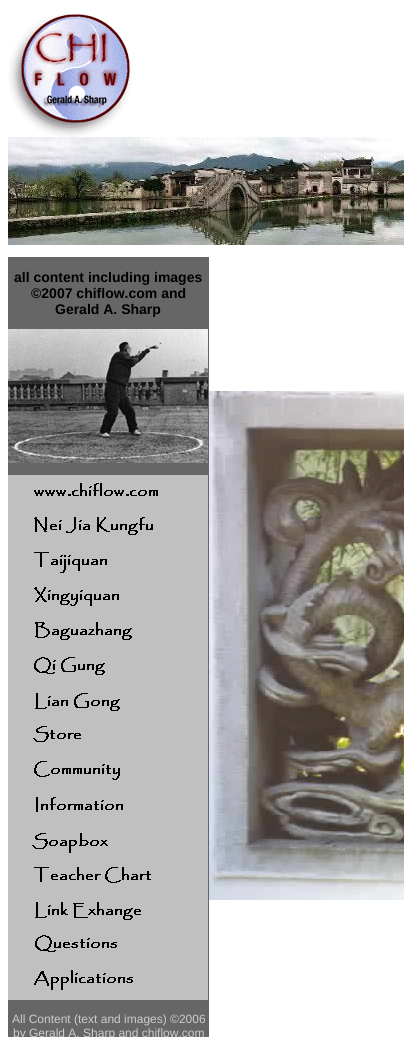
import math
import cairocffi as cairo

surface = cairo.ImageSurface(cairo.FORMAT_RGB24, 404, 1037)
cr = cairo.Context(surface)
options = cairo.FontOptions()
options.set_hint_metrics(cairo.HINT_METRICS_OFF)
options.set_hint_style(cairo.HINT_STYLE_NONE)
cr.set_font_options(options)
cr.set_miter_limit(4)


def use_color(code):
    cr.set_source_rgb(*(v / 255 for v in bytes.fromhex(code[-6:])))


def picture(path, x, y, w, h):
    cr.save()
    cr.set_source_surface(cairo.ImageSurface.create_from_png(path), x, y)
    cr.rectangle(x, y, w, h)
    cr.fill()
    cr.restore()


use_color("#ffffff")
cr.paint()
picture("img1.png", 8, 14, 125, 123)
picture("img2.png", 8, 137, 396, 108)
use_color("#666666")
cr.rectangle(8, 257, 201, 780)
cr.fill()
cr.select_font_face("Liberation Sans", cairo.FONT_SLANT_NORMAL, cairo.FONT_WEIGHT_BOLD)
cr.set_font_size(14)
use_color("#000000")
cr.move_to(14, 282)
cr.show_text("all content including images")
cr.move_to(31, 298)
cr.show_text("©2007 chiflow.com and")
cr.move_to(55, 314)
cr.show_text("Gerald A. Sharp")
picture("img3.png", 8, 329, 200, 134)
picture("img4.png", 8, 475, 200, 35)
picture("img5.png", 8, 510, 200, 35)
picture("img6.png", 8, 545, 200, 35)
picture("img7.png", 8, 580, 200, 35)
picture("img8.png", 8, 615, 200, 35)
picture("img9.png", 8, 650, 200, 35)
picture("img10.png", 8, 685, 200, 35)
picture("img11.png", 8, 720, 200, 35)
picture("img12.png", 8, 755, 200, 35)
picture("img13.png", 8, 790, 200, 35)
picture("img14.png", 8, 825, 200, 35)
picture("img15.png", 8, 860, 200, 35)
picture("img16.png", 8, 895, 200, 35)
picture("img17.png", 8, 930, 200, 35)
picture("img18.png", 8, 965, 200, 35)
cr.select_font_face("Liberation Sans")
cr.set_font_size(12)
use_color("#cccccc")
cr.move_to(12, 1023)
cr.show_text("All Content (text and images) ©2006")
cr.move_to(13, 1037)
cr.show_text("by Gerald A. Sharp and chiflow.com")
picture("img19.png", 209, 391, 195, 509)
surface.write_to_png("result.png")
